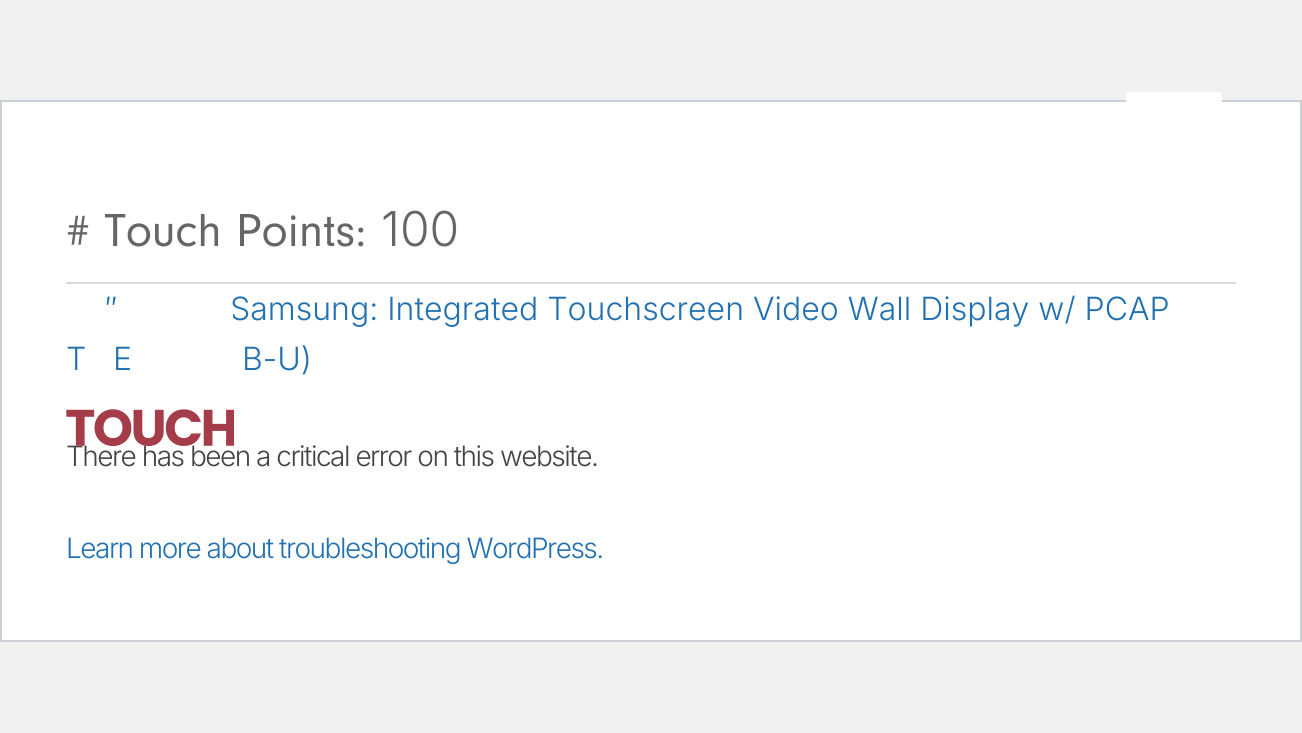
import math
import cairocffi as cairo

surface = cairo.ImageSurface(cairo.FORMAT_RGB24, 1302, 733)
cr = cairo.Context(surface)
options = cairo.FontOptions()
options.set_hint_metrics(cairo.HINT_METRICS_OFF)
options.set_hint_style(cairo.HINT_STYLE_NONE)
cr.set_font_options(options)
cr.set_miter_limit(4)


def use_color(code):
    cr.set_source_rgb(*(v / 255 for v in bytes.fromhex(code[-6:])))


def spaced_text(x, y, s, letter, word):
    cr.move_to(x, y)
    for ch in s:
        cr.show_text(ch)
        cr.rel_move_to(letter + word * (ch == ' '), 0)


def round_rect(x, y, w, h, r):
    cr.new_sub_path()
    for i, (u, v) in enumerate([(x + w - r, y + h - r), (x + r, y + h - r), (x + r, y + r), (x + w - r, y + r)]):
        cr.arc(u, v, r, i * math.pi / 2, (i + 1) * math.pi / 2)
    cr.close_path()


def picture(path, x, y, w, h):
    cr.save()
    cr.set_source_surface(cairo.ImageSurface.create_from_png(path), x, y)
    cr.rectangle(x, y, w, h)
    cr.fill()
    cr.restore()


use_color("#f1f1f1")
cr.paint()
use_color("#ffffff")
cr.rectangle(1, 101, 1300, 540)
cr.fill_preserve()
use_color("#ccd0d4")
cr.stroke()
use_color("#ffffff")
round_rect(1126, 92, 96, 12, 4)
cr.fill()
cr.select_font_face("Inter Light")
cr.set_font_size(32)
use_color("#2271b1")
cr.move_to(105, 320)
cr.show_text("″")
cr.move_to(230, 320)
cr.show_text("Samsung: Integrated Touchscreen Video Wall Display w/ PCAP")
cr.move_to(66, 370)
cr.show_text("T")
cr.move_to(113, 370)
cr.show_text("E")
cr.set_font_size(28)
use_color("#444444")
spaced_text(66, 466, "There has been a critical error on this website.", -1.5, 0)
picture("img1.png", 66, 304, 168, 142)
use_color("#dadada")
cr.rectangle(66, 282, 1170, 2)
cr.fill()
cr.select_font_face("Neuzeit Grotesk")
cr.set_font_size(48)
use_color("#666666")
cr.move_to(66, 246)
cr.show_text("# Touch Points:")
cr.select_font_face("Inter Light")
cr.move_to(381, 246)
cr.show_text("100")
cr.set_font_size(32)
use_color("#2271b1")
cr.move_to(242, 370)
cr.show_text("B-U)")
cr.set_font_size(28)
spaced_text(66, 558, "Learn more about troubleshooting WordPress.", -1.5, 0)
surface.write_to_png("result.png")
